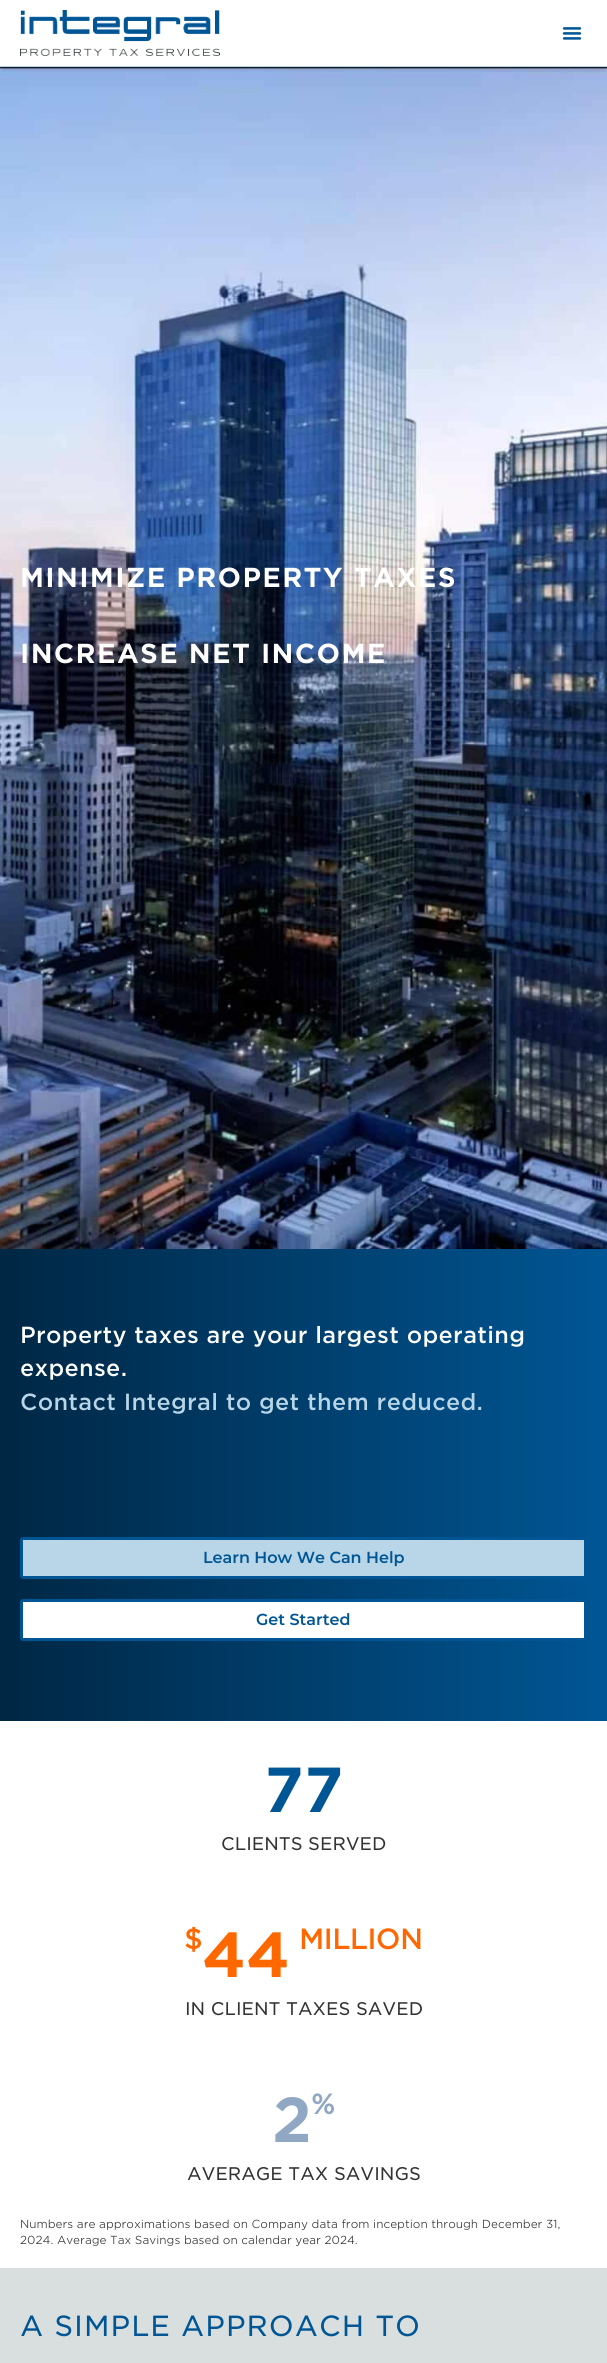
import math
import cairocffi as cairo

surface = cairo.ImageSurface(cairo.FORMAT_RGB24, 607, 2363)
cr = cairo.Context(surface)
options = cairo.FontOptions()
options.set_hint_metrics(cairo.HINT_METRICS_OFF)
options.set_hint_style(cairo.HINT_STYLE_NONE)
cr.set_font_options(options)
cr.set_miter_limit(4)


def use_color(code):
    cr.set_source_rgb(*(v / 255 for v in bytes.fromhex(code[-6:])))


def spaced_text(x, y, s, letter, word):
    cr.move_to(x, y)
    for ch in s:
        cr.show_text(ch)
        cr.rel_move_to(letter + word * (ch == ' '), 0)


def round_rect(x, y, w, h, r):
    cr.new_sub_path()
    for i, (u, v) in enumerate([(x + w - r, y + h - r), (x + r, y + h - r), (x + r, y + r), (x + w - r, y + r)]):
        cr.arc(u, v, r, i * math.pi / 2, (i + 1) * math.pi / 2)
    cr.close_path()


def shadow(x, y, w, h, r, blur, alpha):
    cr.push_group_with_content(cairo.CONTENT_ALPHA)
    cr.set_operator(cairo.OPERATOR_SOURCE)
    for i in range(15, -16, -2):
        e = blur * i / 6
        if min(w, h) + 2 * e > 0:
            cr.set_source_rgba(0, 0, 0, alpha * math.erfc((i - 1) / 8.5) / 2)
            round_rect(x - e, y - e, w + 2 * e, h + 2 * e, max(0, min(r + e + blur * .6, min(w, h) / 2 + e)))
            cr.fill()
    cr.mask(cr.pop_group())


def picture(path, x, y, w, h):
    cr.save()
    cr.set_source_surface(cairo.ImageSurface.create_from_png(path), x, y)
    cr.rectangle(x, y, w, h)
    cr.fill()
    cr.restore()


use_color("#ffffff")
cr.paint()
picture("img3.png", 0, 67, 607, 1182)
cr.save()
cr.rectangle(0, 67, 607, 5)
cr.clip()
use_color("#000000")
shadow(2, 6, 603, 63, 0, 2, 0.2)
cr.restore()
use_color("#b9d6e8")
cr.rectangle(0, 66, 607, 1)
cr.fill()
picture("img1.png", 20, 10, 200, 46)
picture("img2.png", 562, 27, 20, 13)
cr.select_font_face("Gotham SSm", cairo.FONT_SLANT_NORMAL, cairo.FONT_WEIGHT_BOLD)
cr.set_font_size(26.4)
use_color("#ffffff")
spaced_text(20, 587, "MINIMIZE PROPERTY TAXES", 1.3, 0)
spaced_text(20, 663, "INCREASE NET INCOME", 1.3, 0)
gradient = cairo.LinearGradient(607, 1485, 0, 1485)
gradient.add_color_stop_rgba(0, 0, 0.337, 0.584, 1)
gradient.add_color_stop_rgba(1, 0, 0.153, 0.267, 1)
cr.set_source(gradient)
cr.rectangle(0, 1249, 607, 472)
cr.fill()
cr.select_font_face("Gotham SSm Medium")
cr.set_font_size(22.4)
use_color("#ffffff")
spaced_text(20, 1343, "Property taxes are your largest operating", 0.3, 0)
spaced_text(20, 1376, "expense.", 0.3, 0)
use_color("#b9d6e8")
spaced_text(20, 1410, "Contact Integral to get them reduced.", 0.3, 0)
round_rect(21.5, 1538.5, 564, 39, 1.5)
cr.fill_preserve()
use_color("#005695")
cr.set_line_width(3)
cr.stroke()
cr.select_font_face("Montserrat SemiBold")
cr.set_font_size(16)
cr.move_to(203, 1563)
cr.show_text("Learn How We Can Help")
use_color("#ffffff")
round_rect(21.5, 1600.5, 564, 39, 1.5)
cr.fill_preserve()
use_color("#005695")
cr.stroke()
cr.move_to(256, 1625)
cr.show_text("Get Started")
cr.select_font_face("Gotham SSm", cairo.FONT_SLANT_NORMAL, cairo.FONT_WEIGHT_BOLD)
cr.set_font_size(61)
cr.move_to(264, 1812)
cr.show_text("77")
cr.select_font_face("Gotham SSm")
cr.set_font_size(17.6)
use_color("#333333")
cr.move_to(221, 1850)
cr.show_text("CLIENTS SERVED")
cr.select_font_face("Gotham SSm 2", cairo.FONT_SLANT_NORMAL, cairo.FONT_WEIGHT_BOLD)
cr.set_font_size(27)
use_color("#ff6700")
cr.move_to(184, 1949)
cr.show_text("$")
cr.select_font_face("Gotham SSm", cairo.FONT_SLANT_NORMAL, cairo.FONT_WEIGHT_BOLD)
cr.set_font_size(61)
cr.move_to(202, 1977)
cr.show_text("44")
cr.select_font_face("Gotham SSm 2", cairo.FONT_SLANT_NORMAL, cairo.FONT_WEIGHT_BOLD)
cr.set_font_size(27)
cr.move_to(299, 1949)
cr.show_text("MILLION")
cr.select_font_face("Gotham SSm")
cr.set_font_size(17.6)
use_color("#333333")
cr.move_to(185, 2015)
cr.show_text("IN CLIENT TAXES SAVED")
cr.select_font_face("Gotham SSm", cairo.FONT_SLANT_NORMAL, cairo.FONT_WEIGHT_BOLD)
cr.set_font_size(61)
use_color("#90a8c3")
cr.move_to(272, 2142)
cr.show_text("2")
cr.select_font_face("Gotham SSm 2", cairo.FONT_SLANT_NORMAL, cairo.FONT_WEIGHT_BOLD)
cr.set_font_size(27)
cr.move_to(311, 2114)
cr.show_text("%")
cr.select_font_face("Gotham SSm")
cr.set_font_size(17.6)
use_color("#333333")
cr.move_to(187, 2180)
cr.show_text("AVERAGE TAX SAVINGS")
cr.select_font_face("Gotham SSm Light")
cr.set_font_size(11.2)
cr.move_to(20, 2228)
cr.show_text("Numbers are approximations based on Company data from inception through December 31,")
cr.move_to(20, 2244)
cr.show_text("2024. Average Tax Savings based on calendar year 2024.")
use_color("#d9dede")
cr.rectangle(0, 2268, 607, 95)
cr.fill()
cr.select_font_face("Gotham SSm")
cr.set_font_size(28)
use_color("#005695")
spaced_text(20, 2336, "A SIMPLE APPROACH TO", 1, 0)
surface.write_to_png("result.png")
